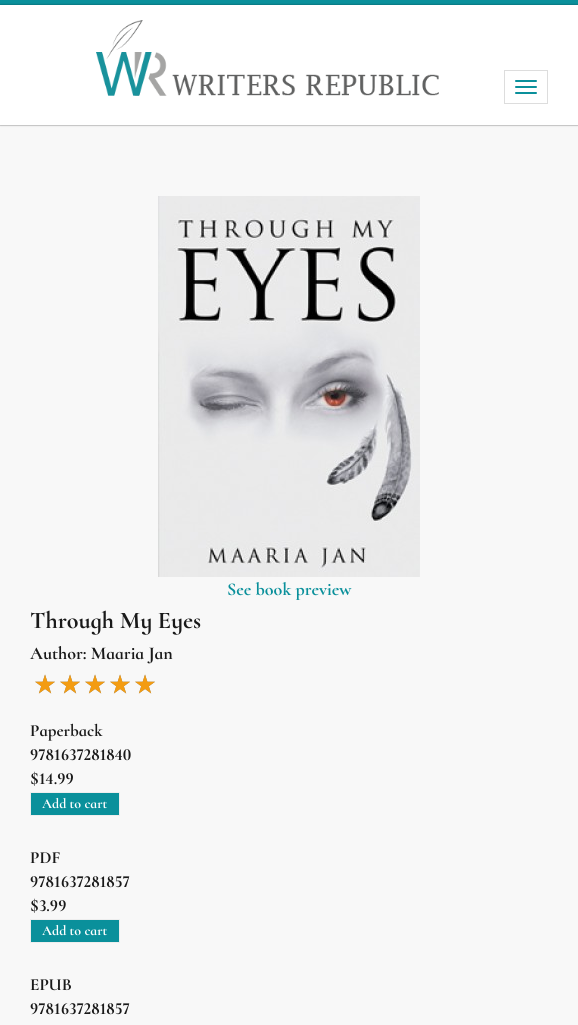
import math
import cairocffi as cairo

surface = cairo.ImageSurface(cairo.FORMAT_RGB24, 578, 1025)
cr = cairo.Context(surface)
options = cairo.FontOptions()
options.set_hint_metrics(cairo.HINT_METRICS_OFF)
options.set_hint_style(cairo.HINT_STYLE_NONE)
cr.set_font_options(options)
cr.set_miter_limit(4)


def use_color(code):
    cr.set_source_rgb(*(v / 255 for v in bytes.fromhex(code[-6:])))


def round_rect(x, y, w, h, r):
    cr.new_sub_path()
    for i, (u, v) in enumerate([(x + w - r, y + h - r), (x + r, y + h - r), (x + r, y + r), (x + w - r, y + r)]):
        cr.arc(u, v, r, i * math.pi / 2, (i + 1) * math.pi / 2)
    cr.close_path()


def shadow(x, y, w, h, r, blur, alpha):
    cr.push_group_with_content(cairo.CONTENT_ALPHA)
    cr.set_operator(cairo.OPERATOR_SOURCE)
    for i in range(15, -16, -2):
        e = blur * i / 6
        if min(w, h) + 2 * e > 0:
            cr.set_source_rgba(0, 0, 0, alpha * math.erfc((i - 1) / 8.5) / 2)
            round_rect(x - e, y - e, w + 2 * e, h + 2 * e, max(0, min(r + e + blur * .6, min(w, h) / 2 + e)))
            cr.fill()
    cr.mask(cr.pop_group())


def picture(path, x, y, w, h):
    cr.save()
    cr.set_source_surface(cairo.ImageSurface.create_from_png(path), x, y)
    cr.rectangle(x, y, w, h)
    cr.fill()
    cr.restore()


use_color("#ffffff")
cr.paint()
use_color("#0a909b")
cr.rectangle(0, 0, 578, 5)
cr.fill()
use_color("#e7e7e7")
cr.rectangle(0, 125, 578, 1)
cr.fill()
use_color("#f8f8f8")
cr.rectangle(0, 126, 578, 899)
cr.fill()
cr.save()
cr.set_fill_rule(cairo.FILL_RULE_EVEN_ODD)
cr.new_path()
cr.move_to(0, 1)
cr.line_to(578, 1)
cr.line_to(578, 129)
cr.line_to(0, 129)
cr.close_path()
cr.move_to(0, 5)
cr.line_to(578, 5)
cr.line_to(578, 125)
cr.line_to(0, 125)
cr.close_path()
cr.clip()
use_color("#000000")
shadow(0, 5, 578, 120, 0, 1, 0.4)
cr.restore()
picture("img1.png", 96, 20, 343, 76)
cr.rectangle(504.5, 70.5, 43, 33)
use_color("#dddddd")
cr.set_line_width(1)
cr.stroke()
use_color("#0a909b")
round_rect(515, 80, 22, 2, 1)
cr.fill()
round_rect(515, 86, 22, 2, 1)
cr.fill()
round_rect(515, 92, 22, 2, 1)
cr.fill()
picture("img2.png", 158, 196, 262, 381)
cr.select_font_face("Cormorant Infant", cairo.FONT_SLANT_NORMAL, cairo.FONT_WEIGHT_BOLD)
cr.set_font_size(18)
cr.move_to(227, 595)
cr.show_text("See book preview")
cr.set_font_size(24)
use_color("#191919")
cr.move_to(30, 628)
cr.show_text("Through My Eyes")
cr.set_font_size(18)
cr.move_to(30, 659)
cr.show_text("Author: Maaria Jan")
picture("img3.png", 35, 674, 20, 20)
picture("img3.png", 60, 674, 20, 20)
picture("img3.png", 85, 674, 20, 20)
picture("img3.png", 110, 674, 20, 20)
picture("img3.png", 135, 674, 20, 20)
picture("img4.png", 35, 674, 20, 20)
picture("img4.png", 60, 674, 20, 20)
picture("img4.png", 85, 674, 20, 20)
picture("img4.png", 110, 674, 20, 20)
picture("img4.png", 135, 674, 20, 20)
cr.set_font_size(17)
cr.move_to(30, 736)
cr.show_text("Paperback")
cr.move_to(30, 760)
cr.show_text("9781637281840")
cr.move_to(30, 784)
cr.show_text("$14.99")
use_color("#0a909b")
cr.rectangle(30.5, 792.5, 89, 23)
cr.fill_preserve()
use_color("#eeeeee")
cr.stroke()
cr.set_font_size(14)
use_color("#ffffff")
cr.move_to(42, 808)
cr.show_text("Add to cart")
cr.set_font_size(17)
use_color("#191919")
cr.move_to(30, 863)
cr.show_text("PDF")
cr.move_to(30, 887)
cr.show_text("9781637281857")
cr.move_to(30, 911)
cr.show_text("$3.99")
use_color("#0a909b")
cr.rectangle(30.5, 919.5, 89, 23)
cr.fill_preserve()
use_color("#eeeeee")
cr.stroke()
cr.set_font_size(14)
use_color("#ffffff")
cr.move_to(42, 935)
cr.show_text("Add to cart")
cr.set_font_size(17)
use_color("#191919")
cr.move_to(30, 990)
cr.show_text("EPUB")
cr.move_to(30, 1014)
cr.show_text("9781637281857")
surface.write_to_png("result.png")
